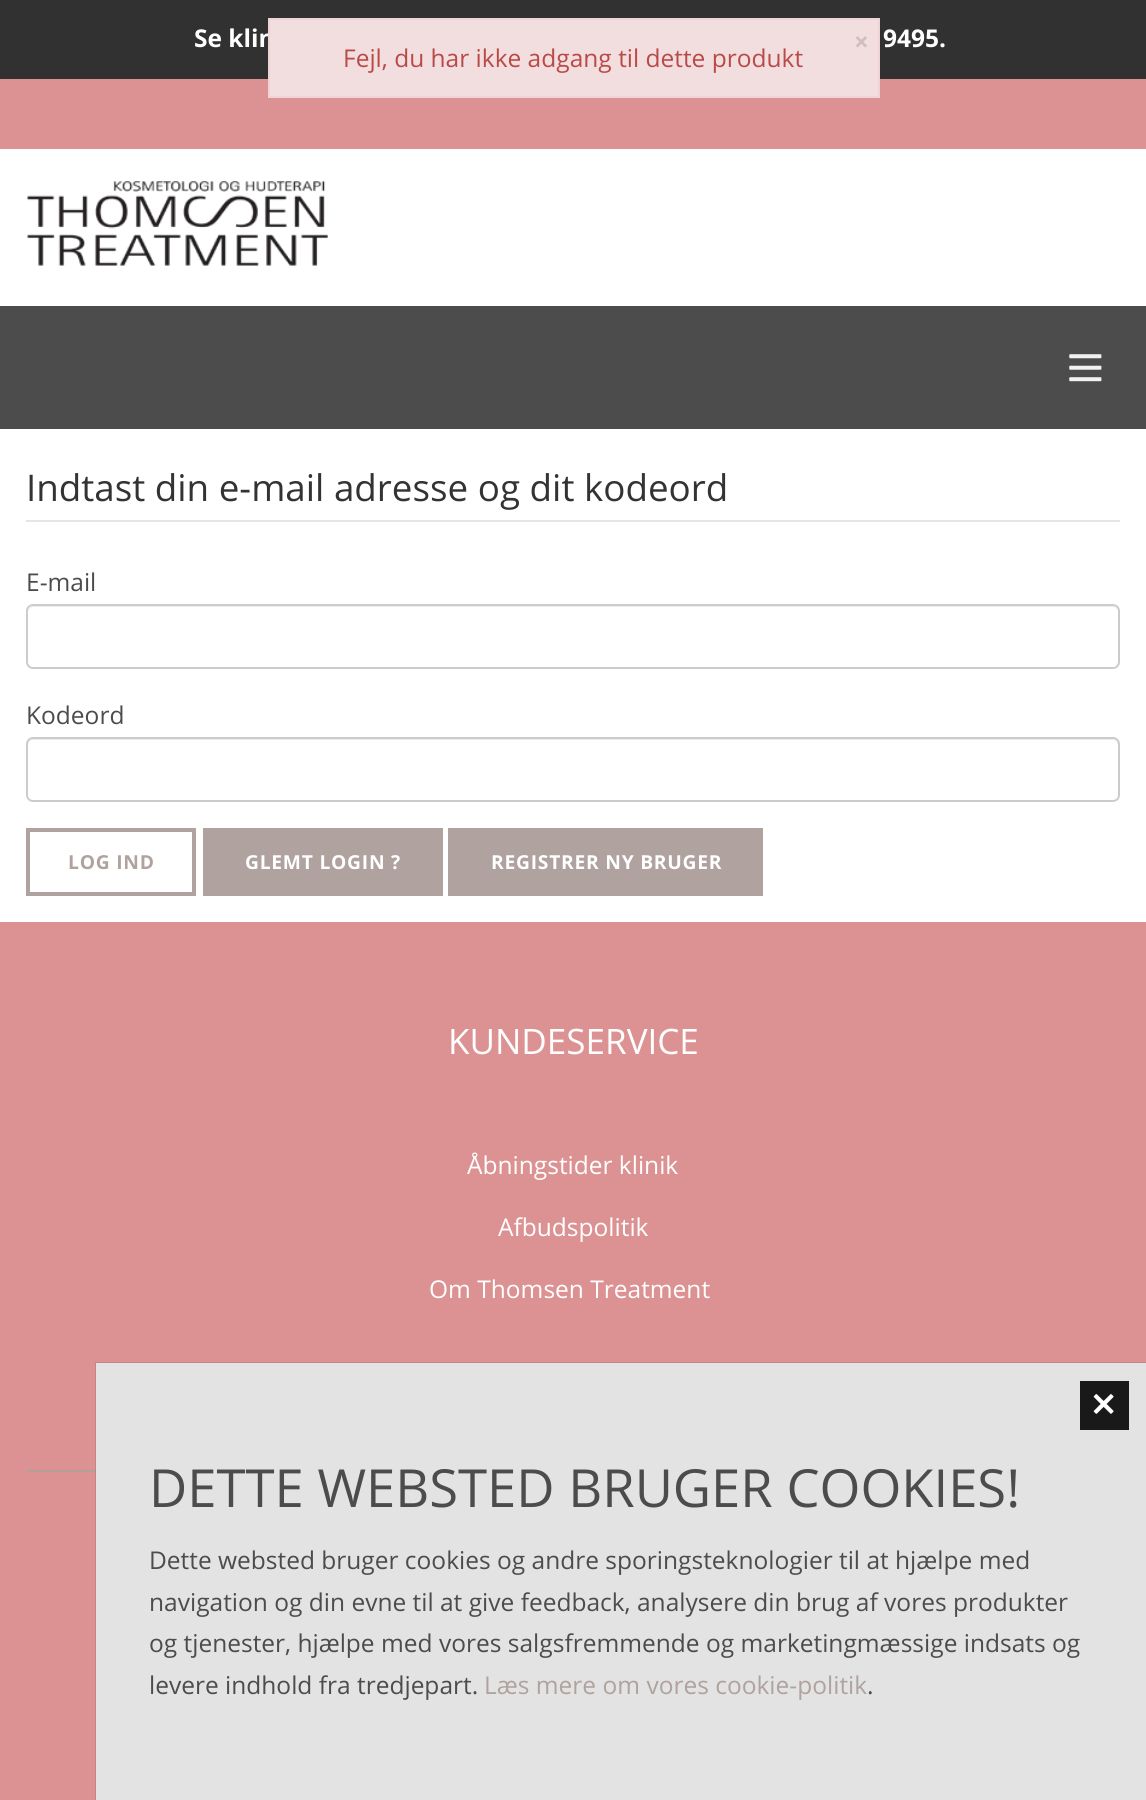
import math
import cairocffi as cairo

surface = cairo.ImageSurface(cairo.FORMAT_RGB24, 1146, 1800)
cr = cairo.Context(surface)
options = cairo.FontOptions()
options.set_hint_metrics(cairo.HINT_METRICS_OFF)
options.set_hint_style(cairo.HINT_STYLE_NONE)
cr.set_font_options(options)
cr.set_miter_limit(4)


def use_color(code):
    cr.set_source_rgb(*(v / 255 for v in bytes.fromhex(code[-6:])))


def spaced_text(x, y, s, letter, word):
    cr.move_to(x, y)
    for ch in s:
        cr.show_text(ch)
        cr.rel_move_to(letter + word * (ch == ' '), 0)


def round_rect(x, y, w, h, r):
    cr.new_sub_path()
    for i, (u, v) in enumerate([(x + w - r, y + h - r), (x + r, y + h - r), (x + r, y + r), (x + w - r, y + r)]):
        cr.arc(u, v, r, i * math.pi / 2, (i + 1) * math.pi / 2)
    cr.close_path()


def picture(path, x, y, w, h):
    cr.save()
    cr.set_source_surface(cairo.ImageSurface.create_from_png(path), x, y)
    cr.rectangle(x, y, w, h)
    cr.fill()
    cr.restore()


use_color("#ffffff")
cr.paint()
use_color("#313131")
cr.rectangle(0, 0, 1146, 79)
cr.fill()
cr.select_font_face("Open Sans", cairo.FONT_SLANT_NORMAL, cairo.FONT_WEIGHT_BOLD)
cr.set_font_size(24.5)
use_color("#ffffff")
cr.move_to(194, 47)
cr.show_text("Se klin")
cr.move_to(883, 47)
cr.show_text("9495.")
use_color("#dc9292")
cr.rectangle(0, 79, 1146, 70)
cr.fill()
picture("img1.png", 27, 181, 301, 85)
use_color("#4c4c4c")
cr.rectangle(0, 306, 1146, 123)
cr.fill()
picture("img2.png", 1069, 354, 33, 28)
use_color("#e5e5e5")
cr.rectangle(26, 520, 1094, 2)
cr.fill()
cr.select_font_face("Open Sans")
cr.set_font_size(36.75)
use_color("#333333")
cr.move_to(26, 501)
cr.show_text("Indtast din e-mail adresse og dit kodeord")
cr.set_font_size(24.5)
use_color("#4c4c4c")
cr.move_to(26, 591)
cr.show_text("E-mail")
use_color("#ececec")
cr.new_path()
cr.move_to(33, 607)
cr.line_to(1113, 607)
cr.curve_to(1116, 607, 1118, 610, 1118, 612)
cr.curve_to(1118, 609, 1116, 606, 1113, 606)
cr.line_to(33, 606)
cr.curve_to(30, 606, 28, 609, 28, 612)
cr.curve_to(28, 610, 30, 607, 33, 607)
cr.close_path()
cr.fill()
round_rect(27, 605, 1092, 63, 6)
use_color("#cccccc")
cr.stroke()
use_color("#4c4c4c")
cr.move_to(26, 724)
cr.show_text("Kodeord")
use_color("#ececec")
cr.new_path()
cr.move_to(33, 740)
cr.line_to(1113, 740)
cr.curve_to(1116, 740, 1118, 743, 1118, 746)
cr.line_to(1118, 744)
cr.curve_to(1118, 741, 1116, 739, 1113, 739)
cr.line_to(33, 739)
cr.curve_to(30, 739, 28, 741, 28, 744)
cr.line_to(28, 746)
cr.curve_to(28, 743, 30, 740, 33, 740)
cr.close_path()
cr.fill()
round_rect(27, 738, 1092, 63, 6)
use_color("#cccccc")
cr.stroke()
cr.rectangle(28, 830, 166, 64)
use_color("#afa29f")
cr.set_line_width(4)
cr.stroke()
cr.select_font_face("Open Sans", cairo.FONT_SLANT_NORMAL, cairo.FONT_WEIGHT_BOLD)
cr.set_font_size(19.25)
spaced_text(68, 869, "LOG IND", 0.75, 0)
cr.rectangle(203, 828, 240, 68)
cr.fill()
use_color("#ffffff")
spaced_text(245, 869, "GLEMT LOGIN ?", 0.75, 0)
use_color("#afa29f")
cr.rectangle(448, 828, 315, 68)
cr.fill()
use_color("#ffffff")
spaced_text(491, 869, "REGISTRER NY BRUGER", 0.75, 0)
use_color("#dc9292")
cr.rectangle(0, 922, 1146, 878)
cr.fill()
cr.select_font_face("Open Sans")
cr.set_font_size(35)
use_color("#ffffff")
cr.move_to(448, 1054)
cr.show_text("KUNDESERVICE")
cr.set_font_size(24.5)
cr.move_to(467, 1174)
cr.show_text("Åbningstider klinik")
cr.move_to(498, 1236)
cr.show_text("Afbudspolitik")
cr.move_to(429, 1298)
cr.show_text("Om Thomsen Treatment")
use_color("#b59f99")
cr.rectangle(26, 1470, 70, 2)
cr.fill()
cr.rectangle(96, 1363, 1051, 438)
cr.set_source_rgba(0, 0, 0, 0.1)
cr.set_line_width(2)
cr.stroke()
use_color("#e3e3e3")
cr.rectangle(96, 1363, 1050, 437)
cr.fill()
use_color("#191919")
cr.rectangle(1080, 1381, 49, 49)
cr.fill()
picture("img3.png", 1093, 1394, 21, 20)
cr.set_font_size(52.5)
use_color("#4c4c4c")
cr.move_to(149, 1507)
cr.show_text("DETTE WEBSTED BRUGER COOKIES!")
cr.set_font_size(24.5)
cr.move_to(149, 1569)
cr.show_text("Dette websted bruger cookies og andre sporingsteknologier til at hjælpe med")
cr.move_to(149, 1611)
cr.show_text("navigation og din evne til at give feedback, analysere din brug af vores produkter")
cr.move_to(149, 1652)
cr.show_text("og tjenester, hjælpe med vores salgsfremmende og marketingmæssige indsats og")
cr.move_to(149, 1694)
cr.show_text("levere indhold fra tredjepart.")
use_color("#afa29f")
cr.move_to(484, 1694)
cr.show_text("Læs mere om vores cookie-politik")
use_color("#4c4c4c")
cr.move_to(867, 1694)
cr.show_text(".")
use_color("#f2dede")
cr.rectangle(269, 19, 610, 78)
cr.fill_preserve()
use_color("#eed3d7")
cr.stroke()
cr.select_font_face("Open Sans", cairo.FONT_SLANT_NORMAL, cairo.FONT_WEIGHT_BOLD)
cr.set_font_size(26)
use_color("#cfbfbf")
cr.move_to(854, 51)
cr.show_text("×")
cr.select_font_face("Open Sans")
cr.set_font_size(24.5)
use_color("#b94a48")
cr.move_to(343, 67)
cr.show_text("Fejl, du har ikke adgang til dette produkt")
surface.write_to_png("result.png")
